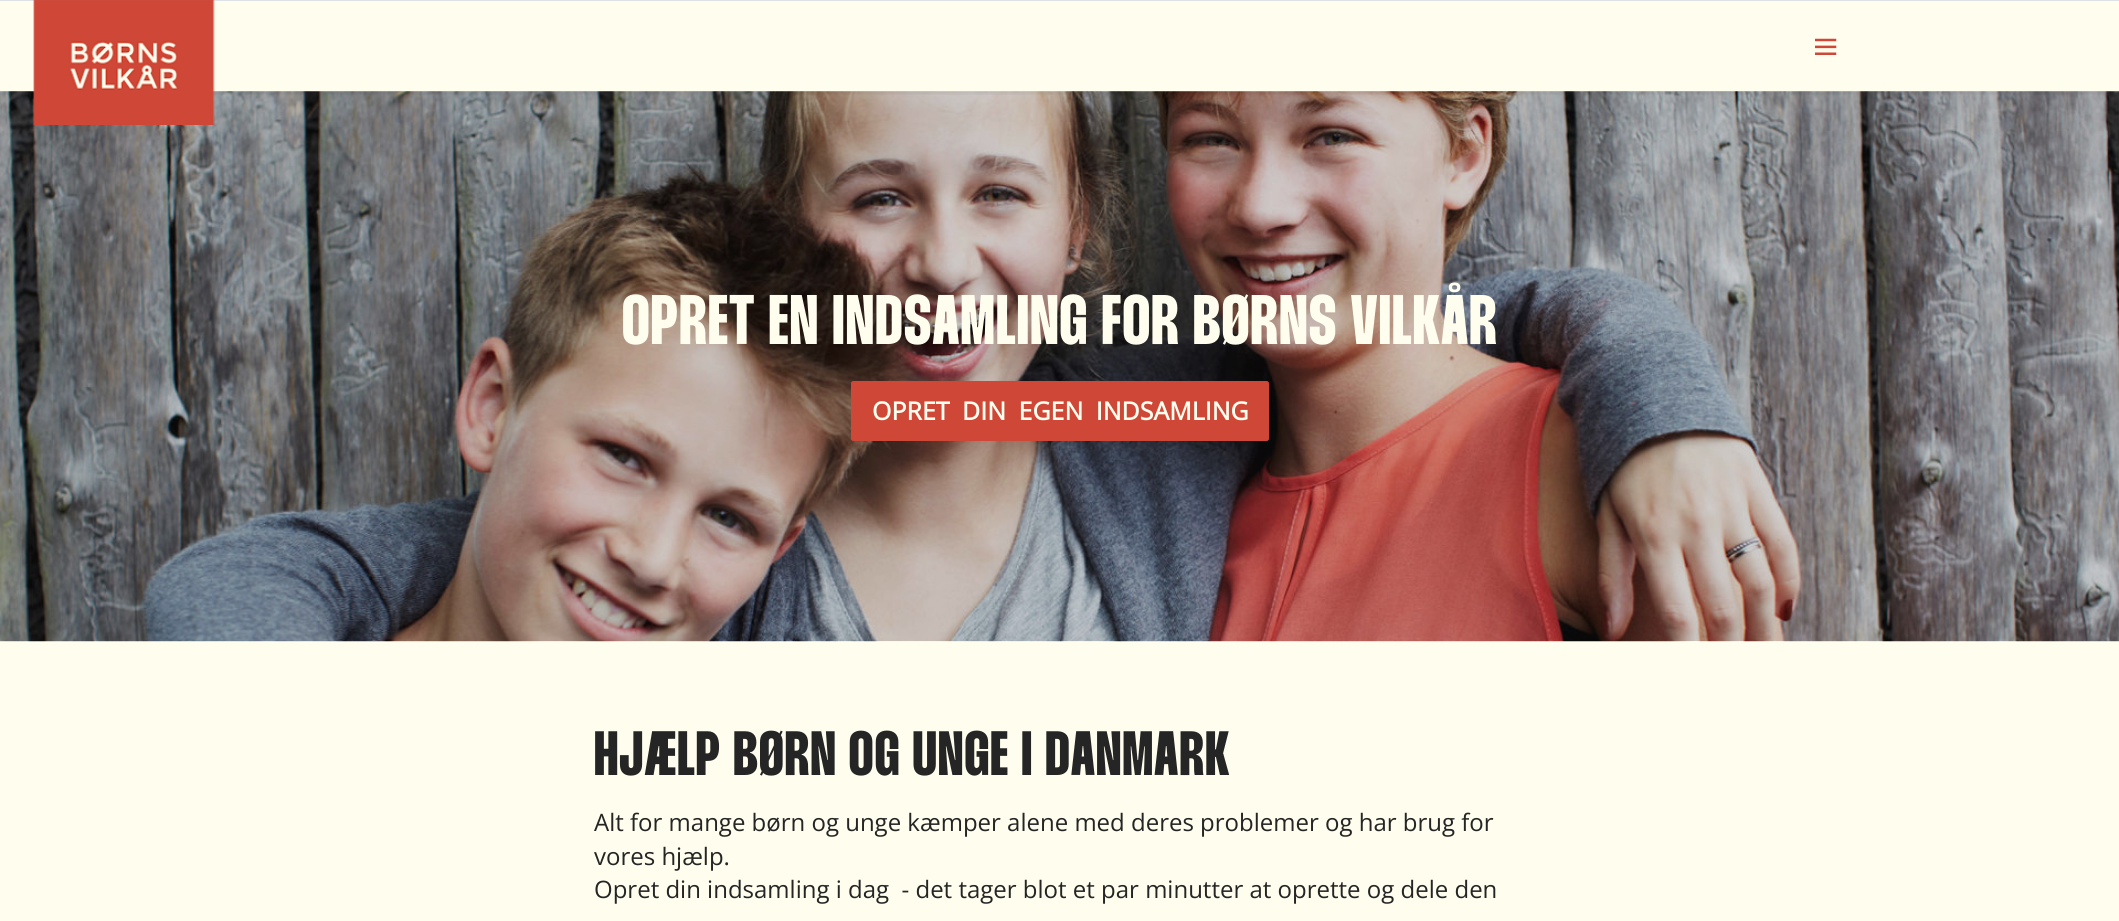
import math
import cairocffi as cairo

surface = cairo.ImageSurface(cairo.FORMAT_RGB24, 2119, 921)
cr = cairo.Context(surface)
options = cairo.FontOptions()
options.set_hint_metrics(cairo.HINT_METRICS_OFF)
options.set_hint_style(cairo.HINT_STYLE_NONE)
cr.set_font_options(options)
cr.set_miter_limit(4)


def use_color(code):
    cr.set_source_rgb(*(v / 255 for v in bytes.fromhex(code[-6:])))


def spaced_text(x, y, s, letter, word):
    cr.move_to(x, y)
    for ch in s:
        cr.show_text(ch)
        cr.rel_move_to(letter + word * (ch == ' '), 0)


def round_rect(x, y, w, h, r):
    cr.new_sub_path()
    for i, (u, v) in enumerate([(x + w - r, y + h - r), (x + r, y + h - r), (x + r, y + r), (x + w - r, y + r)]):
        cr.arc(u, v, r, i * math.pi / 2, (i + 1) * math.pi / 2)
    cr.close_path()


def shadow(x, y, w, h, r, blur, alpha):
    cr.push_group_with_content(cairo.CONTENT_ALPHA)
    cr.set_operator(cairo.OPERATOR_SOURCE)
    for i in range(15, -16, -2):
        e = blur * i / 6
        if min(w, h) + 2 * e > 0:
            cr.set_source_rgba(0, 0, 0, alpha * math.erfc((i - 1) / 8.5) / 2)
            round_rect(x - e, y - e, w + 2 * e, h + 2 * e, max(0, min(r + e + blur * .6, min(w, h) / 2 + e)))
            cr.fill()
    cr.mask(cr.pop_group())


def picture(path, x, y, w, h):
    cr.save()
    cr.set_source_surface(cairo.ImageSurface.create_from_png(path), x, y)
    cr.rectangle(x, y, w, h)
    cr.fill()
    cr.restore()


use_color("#fffeee")
cr.paint()
use_color("#dee2e6")
cr.rectangle(0, 0, 2119, 1)
cr.fill()
picture("img3.png", 0, 91, 2119, 551)
cr.save()
cr.rectangle(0, 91, 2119, 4)
cr.clip()
use_color("#000000")
shadow(0, 4, 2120, 90, 0, 2.5, 0.07)
cr.restore()
picture("img1.png", 33, 0, 182, 125)
picture("img2.png", 1815, 38, 22, 17)
cr.select_font_face("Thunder", cairo.FONT_SLANT_NORMAL, cairo.FONT_WEIGHT_BOLD)
cr.set_font_size(70)
use_color("#fffeee")
spaced_text(622, 344, "OPRET EN INDSAMLING FOR BØRNS VILKÅR", 1.25, 0)
use_color("#ce4737")
round_rect(851.5, 381.5, 417, 59, 2)
cr.fill_preserve()
cr.set_line_width(1)
cr.stroke()
cr.select_font_face("Open Sans", cairo.FONT_SLANT_NORMAL, cairo.FONT_WEIGHT_BOLD)
cr.set_font_size(25)
use_color("#fffeee")
spaced_text(872, 420, "OPRET DIN EGEN INDSAMLING", 0, 6)
cr.select_font_face("Thunder", cairo.FONT_SLANT_NORMAL, cairo.FONT_WEIGHT_BOLD)
cr.set_font_size(62.5)
use_color("#252525")
spaced_text(594, 775, "HJÆLP BØRN OG UNGE I DANMARK", 1.25, 0)
cr.select_font_face("Open Sans")
cr.set_font_size(24)
cr.move_to(594, 831)
cr.show_text("Alt for mange børn og unge kæmper alene med deres problemer og har brug for")
cr.move_to(594, 865)
cr.show_text("vores hjælp.")
cr.move_to(594, 898)
cr.show_text("Opret din indsamling i dag  - det tager blot et par minutter at oprette og dele den")
surface.write_to_png("result.png")
